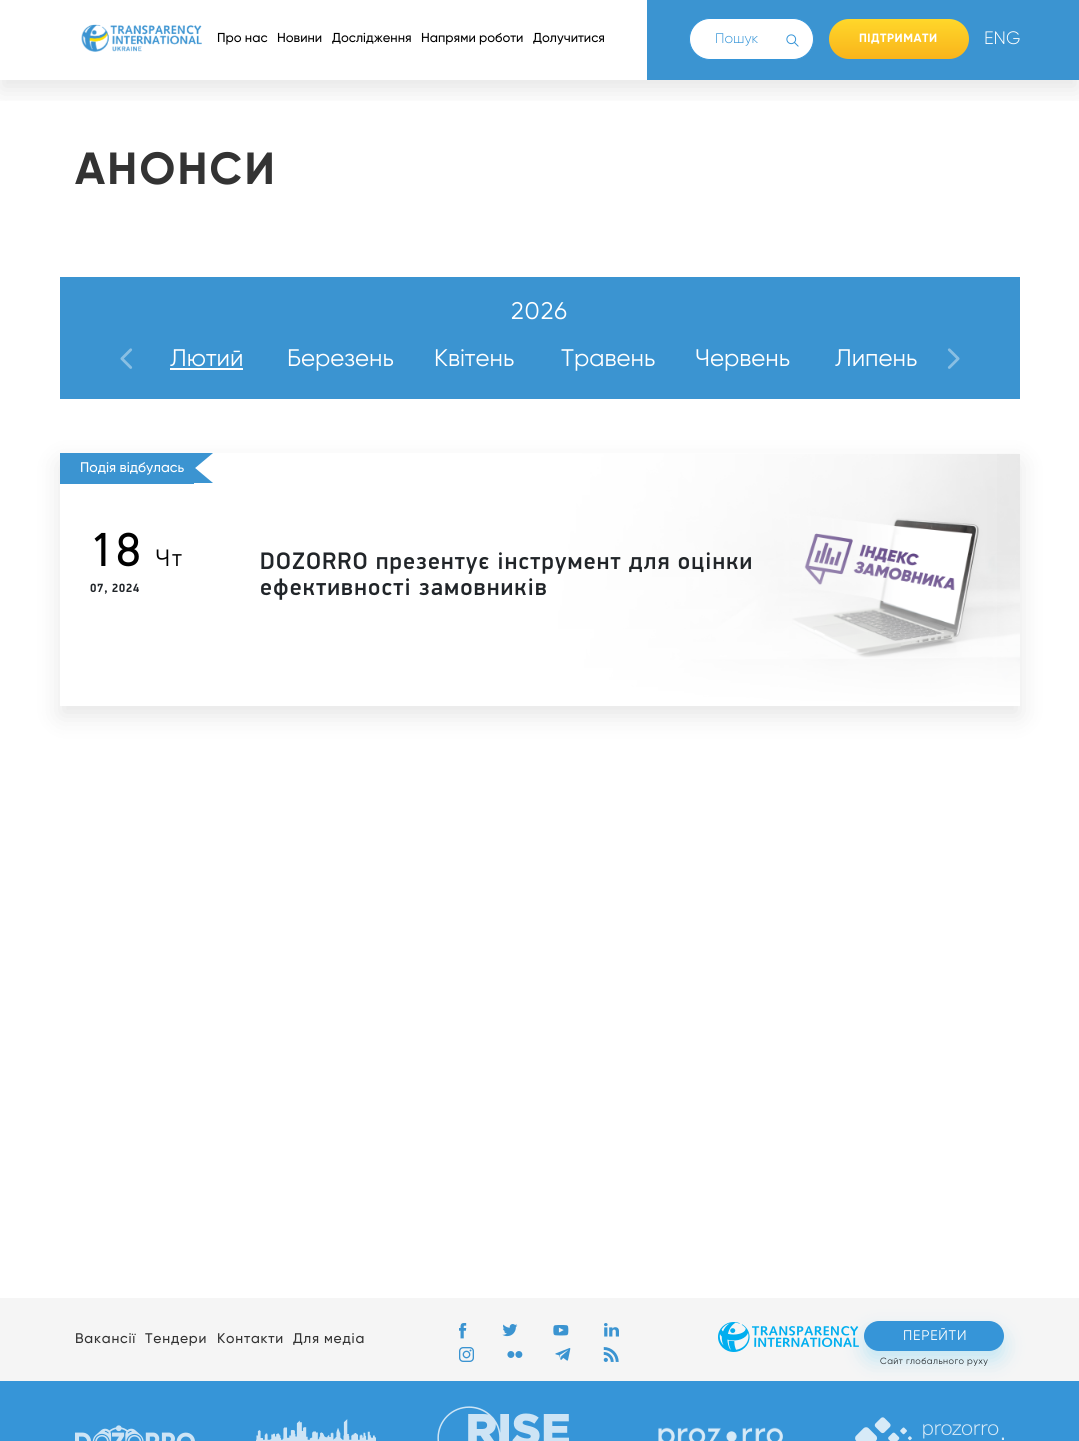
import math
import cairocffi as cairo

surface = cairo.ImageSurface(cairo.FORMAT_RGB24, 1079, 1441)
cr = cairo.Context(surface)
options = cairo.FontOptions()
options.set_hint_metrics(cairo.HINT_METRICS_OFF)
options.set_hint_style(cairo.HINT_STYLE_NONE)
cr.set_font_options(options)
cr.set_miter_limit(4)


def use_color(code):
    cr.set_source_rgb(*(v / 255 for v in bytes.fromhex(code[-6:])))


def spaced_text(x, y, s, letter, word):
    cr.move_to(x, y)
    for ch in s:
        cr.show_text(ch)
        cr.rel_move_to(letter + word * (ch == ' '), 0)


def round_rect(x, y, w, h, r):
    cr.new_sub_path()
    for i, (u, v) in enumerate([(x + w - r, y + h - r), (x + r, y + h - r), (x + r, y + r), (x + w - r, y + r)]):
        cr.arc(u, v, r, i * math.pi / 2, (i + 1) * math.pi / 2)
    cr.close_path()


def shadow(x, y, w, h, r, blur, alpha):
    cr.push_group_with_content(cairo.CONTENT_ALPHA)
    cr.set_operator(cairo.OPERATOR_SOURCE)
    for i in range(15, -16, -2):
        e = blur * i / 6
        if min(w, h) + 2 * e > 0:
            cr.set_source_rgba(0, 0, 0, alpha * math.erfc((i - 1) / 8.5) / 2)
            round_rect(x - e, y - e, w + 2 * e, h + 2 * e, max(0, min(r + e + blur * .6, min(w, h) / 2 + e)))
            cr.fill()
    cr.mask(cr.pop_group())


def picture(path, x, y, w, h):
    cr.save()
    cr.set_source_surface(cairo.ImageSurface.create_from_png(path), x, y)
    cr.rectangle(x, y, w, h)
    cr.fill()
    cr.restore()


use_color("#ffffff")
cr.paint()
cr.save()
cr.rectangle(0, 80, 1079, 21)
cr.clip()
use_color("#000000")
shadow(0, 10, 1079, 80, 0, 12.5, 0.1)
cr.restore()
use_color("#3b94d1")
cr.rectangle(647, 0, 432, 80)
cr.fill()
picture("img1.png", 81, 24, 121, 28)
cr.select_font_face("Gilroy Medium")
cr.set_font_size(13)
use_color("#000000")
cr.move_to(217, 42)
cr.show_text("Про нас")
cr.move_to(277, 42)
cr.show_text("Новини")
cr.move_to(332, 42)
cr.show_text("Дослідження")
cr.move_to(421, 42)
cr.show_text("Напрями роботи")
cr.move_to(533, 42)
cr.show_text("Долучитися")
use_color("#ffffff")
round_rect(689.5, 18.5, 124, 41, 20.5)
cr.fill_preserve()
use_color("#3695d8")
cr.set_line_width(1)
cr.stroke()
cr.select_font_face("Gilroy Light")
cr.set_font_size(14)
cr.move_to(715, 43)
cr.show_text("Пошук")
picture("img2.png", 786, 34, 13, 13)
gradient = cairo.LinearGradient(899, 59, 899, 19)
gradient.add_color_stop_rgba(0, 0.976, 0.706, 0.106, 1)
gradient.add_color_stop_rgba(1, 1, 0.843, 0.165, 1)
cr.set_source(gradient)
round_rect(829, 19, 140, 40, 20)
cr.fill()
cr.select_font_face("Gilroy", cairo.FONT_SLANT_NORMAL, cairo.FONT_WEIGHT_BOLD)
cr.set_font_size(12)
use_color("#ffffff")
spaced_text(859, 42, "ПІДТРИМАТИ", 0.5, 0)
cr.select_font_face("Gilroy Light")
cr.set_font_size(18)
cr.move_to(984, 44)
cr.show_text("ENG")
cr.select_font_face("Gilroy", cairo.FONT_SLANT_NORMAL, cairo.FONT_WEIGHT_BOLD)
cr.set_font_size(45)
use_color("#333333")
spaced_text(75, 184, "АНОНСИ", 2.25, 0)
use_color("#3b94d1")
cr.rectangle(60, 277, 960, 122)
cr.fill()
cr.select_font_face("Gilroy")
cr.set_font_size(24)
use_color("#ffffff")
spaced_text(511, 319, "2026", 1, 0)
picture("img3.png", 120, 348, 13, 21)
cr.move_to(170, 366)
cr.show_text("Лютий")
cr.rectangle(170, 368, 73, 2)
cr.fill()
cr.move_to(287, 366)
cr.show_text("Березень")
cr.move_to(434, 366)
cr.show_text("Квітень")
cr.move_to(561, 366)
cr.show_text("Травень")
cr.move_to(695, 366)
cr.show_text("Червень")
cr.move_to(835, 366)
cr.show_text("Липень")
picture("img4.png", 947, 348, 13, 21)
use_color("#000000")
shadow(60, 463, 960, 253, 0, 12.5, 0.1)
picture("img5.png", 543, 454, 477, 251)
gradient = cairo.LinearGradient(60, 580, 1039, 580)
gradient.add_color_stop_rgba(0.49, 1, 1, 1, 1)
gradient.add_color_stop_rgba(1, 1, 1, 1, 0)
cr.set_source(gradient)
cr.rectangle(60, 453, 937, 252)
cr.fill()
use_color("#3b94d1")
cr.rectangle(60, 453, 134, 31)
cr.fill()
cr.new_path()
cr.move_to(193, 453)
cr.line_to(213, 453)
cr.line_to(194.5, 468.5)
cr.line_to(174.5, 468.5)
cr.close_path()
cr.fill()
cr.new_path()
cr.move_to(174.5, 467.5)
cr.line_to(194.5, 467.5)
cr.line_to(213, 483)
cr.line_to(193, 483)
cr.close_path()
cr.fill()
cr.select_font_face("Gilroy Medium")
cr.set_font_size(14)
use_color("#ffffff")
cr.move_to(80, 472)
cr.show_text("Подія відбулась")
gradient = cairo.LinearGradient(540, 706, 540, 453)
gradient.add_color_stop_rgba(0, 1, 1, 1, 1)
gradient.add_color_stop_rgba(0.61, 1, 1, 1, 0)
cr.set_source(gradient)
cr.rectangle(60, 555, 960, 151)
cr.fill()
picture("img6.png", 94, 532, 45, 35)
picture("img7.png", 156, 549, 26, 17)
picture("img8.png", 90, 583, 49, 11)
picture("img9.png", 261, 552, 490, 22)
picture("img10.png", 261, 578, 285, 22)
use_color("#f5f5f5")
cr.rectangle(0, 1298, 1079, 83)
cr.fill()
use_color("#333333")
spaced_text(75, 1343, "Вакансії", 0.75, 0)
spaced_text(145, 1343, "Тендери", 0.75, 0)
spaced_text(217, 1343, "Контакти", 0.75, 0)
spaced_text(293, 1343, "Для медіа", 0.75, 0)
picture("img11.png", 459, 1323, 8, 16)
picture("img12.png", 502, 1324, 16, 13)
picture("img13.png", 553, 1325, 16, 11)
picture("img14.png", 604, 1323, 15, 14)
picture("img15.png", 459, 1347, 15, 15)
picture("img16.png", 507, 1351, 16, 7)
picture("img17.png", 555, 1348, 16, 13)
picture("img18.png", 603, 1347, 16, 15)
picture("img19.png", 718, 1322, 141, 30)
use_color("#3695d8")
cr.rectangle(0, 1381, 1079, 60)
cr.fill()
use_color("#00aeef")
shadow(864, 1331, 140, 30, 15, 10, 0.2)
use_color("#3695d8")
round_rect(864, 1321, 140, 30, 15)
cr.fill()
cr.select_font_face("Gilroy")
use_color("#ffffff")
spaced_text(903, 1340, "ПЕРЕЙТИ", 0.75, 0)
cr.set_font_size(9)
use_color("#212529")
spaced_text(880, 1364, "Сайт глобального руху", 0.45, 0)
picture("img20.png", 75, 1425, 120, 16)
picture("img21.png", 256, 1419, 120, 22)
picture("img22.png", 437, 1406, 132, 35)
picture("img23.png", 658, 1427, 125, 14)
picture("img24.png", 855, 1417, 149, 24)
surface.write_to_png("result.png")
